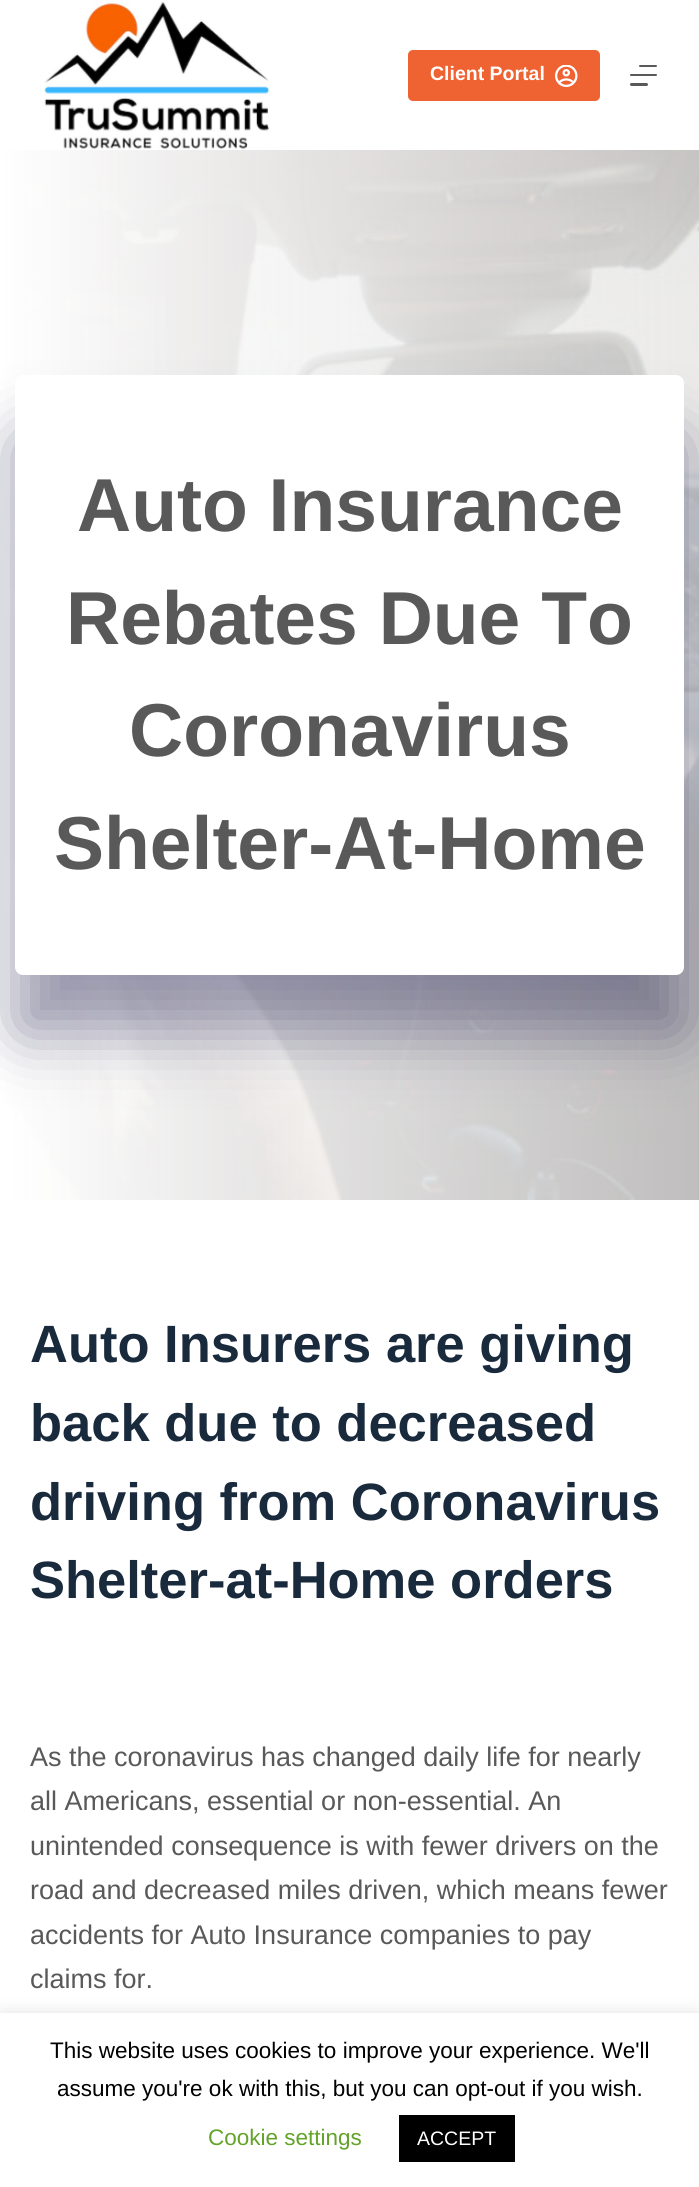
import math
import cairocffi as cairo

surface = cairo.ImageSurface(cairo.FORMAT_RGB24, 699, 2187)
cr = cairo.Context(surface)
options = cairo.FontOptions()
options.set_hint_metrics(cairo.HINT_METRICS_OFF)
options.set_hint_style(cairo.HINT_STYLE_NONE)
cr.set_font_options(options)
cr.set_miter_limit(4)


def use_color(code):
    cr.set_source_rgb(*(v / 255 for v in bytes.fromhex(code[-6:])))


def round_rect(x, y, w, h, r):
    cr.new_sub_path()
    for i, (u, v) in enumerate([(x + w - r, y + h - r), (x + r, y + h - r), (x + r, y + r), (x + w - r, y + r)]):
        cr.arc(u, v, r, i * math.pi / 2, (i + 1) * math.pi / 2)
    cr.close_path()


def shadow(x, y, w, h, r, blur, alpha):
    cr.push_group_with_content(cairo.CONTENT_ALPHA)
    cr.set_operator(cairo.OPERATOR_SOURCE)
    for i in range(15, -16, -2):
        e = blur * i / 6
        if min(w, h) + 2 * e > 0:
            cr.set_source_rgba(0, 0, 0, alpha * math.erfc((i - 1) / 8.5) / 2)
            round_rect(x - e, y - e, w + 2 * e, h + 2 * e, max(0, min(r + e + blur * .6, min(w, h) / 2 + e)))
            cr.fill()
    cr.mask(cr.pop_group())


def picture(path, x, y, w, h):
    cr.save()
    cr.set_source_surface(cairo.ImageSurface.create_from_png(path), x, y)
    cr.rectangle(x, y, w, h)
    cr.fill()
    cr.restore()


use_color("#ffffff")
cr.paint()
picture("img1.png", 44, 1, 226, 148)
use_color("#ef6333")
round_rect(408, 50, 192, 51, 5)
cr.fill()
cr.select_font_face("Liberation Sans", cairo.FONT_SLANT_NORMAL, cairo.FONT_WEIGHT_BOLD)
cr.set_font_size(19.5)
use_color("#ffffff")
cr.move_to(430, 80)
cr.show_text("Client Portal")
picture("img2.png", 555, 65, 23, 22)
use_color("#595959")
round_rect(639, 65, 18, 2, 1)
cr.fill()
round_rect(630, 74, 27, 2, 1)
cr.fill()
round_rect(630, 83, 18, 3, 1.5)
cr.fill()
picture("img3.png", 0, 150, 699, 1050)
use_color("#1c1949")
shadow(15, 435, 669, 600, 8, 30, 0.43)
use_color("#ffffff")
round_rect(15, 375, 669, 600, 8)
cr.fill()
cr.set_font_size(75)
use_color("#595959")
cr.move_to(77, 531)
cr.show_text("Auto Insurance")
cr.move_to(66, 644)
cr.show_text("Rebates Due To")
cr.move_to(129, 756)
cr.show_text("Coronavirus")
cr.move_to(54, 869)
cr.show_text("Shelter-At-Home")
cr.set_font_size(52.5)
use_color("#192a3d")
cr.move_to(30, 1362)
cr.show_text("Auto Insurers are giving")
cr.move_to(30, 1441)
cr.show_text("back due to decreased")
cr.move_to(30, 1520)
cr.show_text("driving from Coronavirus")
cr.move_to(30, 1598)
cr.show_text("Shelter-at-Home orders")
cr.select_font_face("Liberation Sans")
cr.set_font_size(27)
use_color("#595959")
cr.move_to(30, 1766)
cr.show_text("As the coronavirus has changed daily life for nearly")
cr.move_to(30, 1810)
cr.show_text("all Americans, essential or non-essential. An")
cr.move_to(30, 1855)
cr.show_text("unintended consequence is with fewer drivers on the")
cr.move_to(30, 1899)
cr.show_text("road and decreased miles driven, which means fewer")
cr.move_to(30, 1944)
cr.show_text("accidents for Auto Insurance companies to pay")
cr.move_to(30, 1988)
cr.show_text("claims for.")
use_color("#acabab")
shadow(0, 2012, 699, 174, 0, 7.5, 0.3)
use_color("#ffffff")
cr.rectangle(0, 2013, 699, 174)
cr.fill()
cr.set_font_size(22.5)
use_color("#000000")
cr.move_to(50, 2058)
cr.show_text("This website uses cookies to improve your experience. We'll")
cr.move_to(57, 2096)
cr.show_text("assume you're ok with this, but you can opt-out if you wish.")
use_color("#62a329")
cr.move_to(208, 2145)
cr.show_text("Cookie settings")
use_color("#000000")
cr.rectangle(399, 2115, 116, 47)
cr.fill()
cr.set_font_size(19.5)
use_color("#ffffff")
cr.move_to(417, 2145)
cr.show_text("ACCEPT")
surface.write_to_png("result.png")
